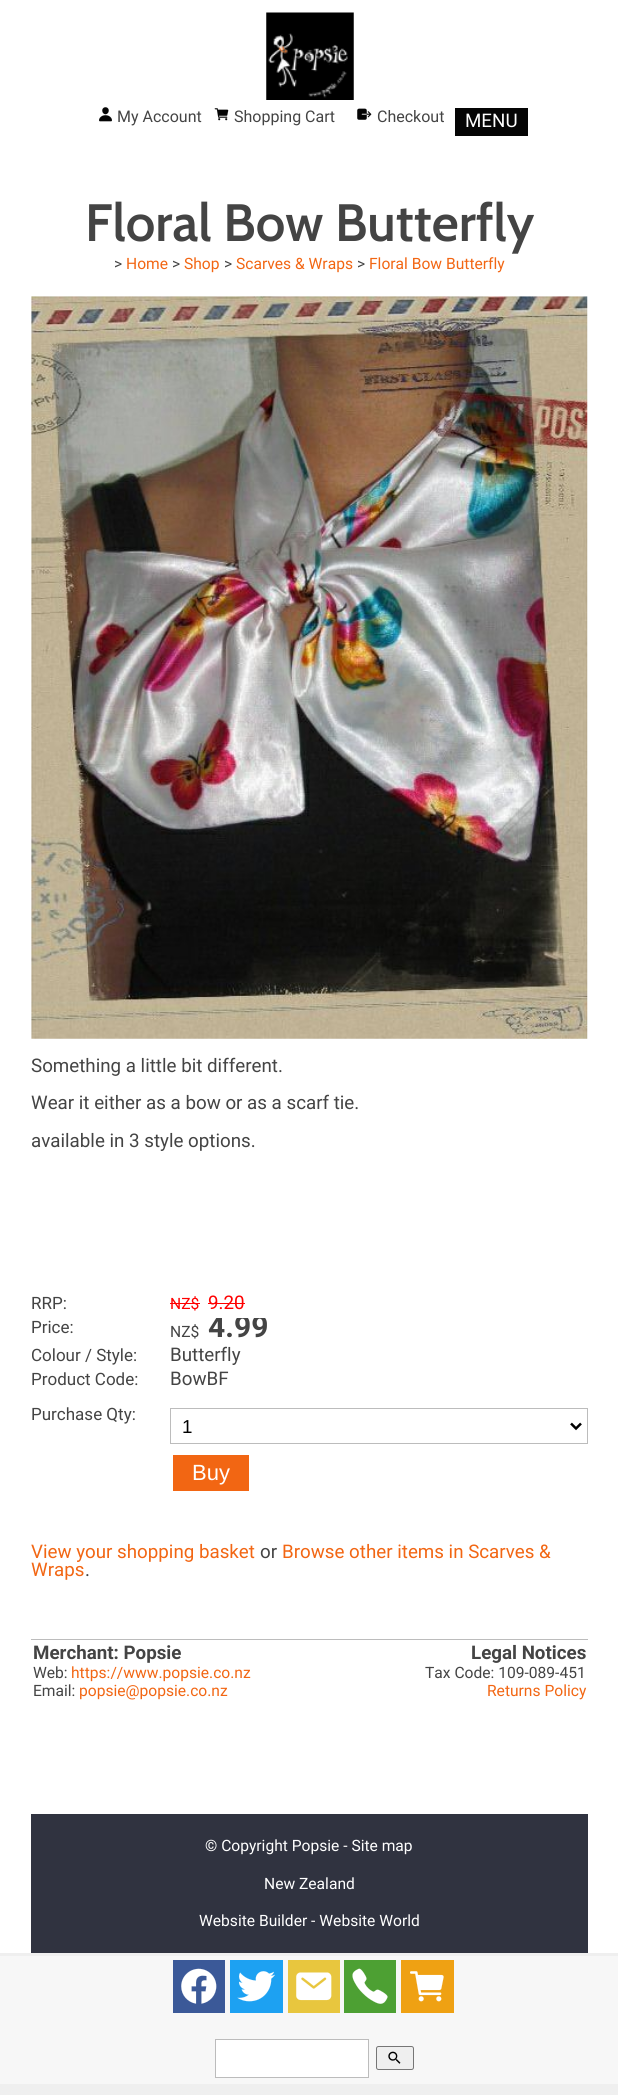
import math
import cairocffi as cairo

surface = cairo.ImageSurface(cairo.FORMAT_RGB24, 618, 2095)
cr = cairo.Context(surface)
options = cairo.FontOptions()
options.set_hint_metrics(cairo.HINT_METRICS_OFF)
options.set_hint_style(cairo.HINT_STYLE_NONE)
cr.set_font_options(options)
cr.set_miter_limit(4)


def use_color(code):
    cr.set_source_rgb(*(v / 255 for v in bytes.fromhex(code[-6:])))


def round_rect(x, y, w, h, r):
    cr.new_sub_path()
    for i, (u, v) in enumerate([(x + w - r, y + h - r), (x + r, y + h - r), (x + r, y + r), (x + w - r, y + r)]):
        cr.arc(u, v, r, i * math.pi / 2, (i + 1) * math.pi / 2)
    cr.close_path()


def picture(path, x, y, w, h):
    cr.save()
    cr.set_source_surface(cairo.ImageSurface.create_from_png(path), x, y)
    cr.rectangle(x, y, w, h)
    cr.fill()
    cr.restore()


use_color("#efefef")
cr.paint()
use_color("#ffffff")
cr.rectangle(0, 0, 618, 1953)
cr.fill()
picture("img1.png", 266, 12, 88, 88)
picture("img2.png", 99, 107, 13, 15)
cr.select_font_face("Roboto")
cr.set_font_size(16)
use_color("#444444")
cr.move_to(117, 122)
cr.show_text("My Account")
picture("img3.png", 214, 108, 15, 13)
cr.move_to(234, 122)
cr.show_text("Shopping Cart")
picture("img4.png", 357, 108, 15, 12)
cr.move_to(377, 122)
cr.show_text("Checkout")
use_color("#050505")
cr.rectangle(455, 108, 73, 28)
cr.fill()
cr.set_font_size(18.75)
use_color("#ffffff")
cr.move_to(465, 127)
cr.show_text("MENU")
cr.select_font_face("Cabin SemiBold")
cr.set_font_size(52.5)
use_color("#444444")
cr.move_to(85, 241)
cr.show_text("Floral Bow Butterfly")
cr.select_font_face("Roboto")
cr.set_font_size(15.6)
cr.move_to(114, 269)
cr.show_text(">")
use_color("#f26613")
cr.move_to(126, 269)
cr.show_text("Home")
use_color("#444444")
cr.move_to(172, 269)
cr.show_text(">")
use_color("#f26613")
cr.move_to(184, 269)
cr.show_text("Shop")
use_color("#444444")
cr.move_to(224, 269)
cr.show_text(">")
use_color("#f26613")
cr.move_to(236, 269)
cr.show_text("Scarves & Wraps")
use_color("#444444")
cr.move_to(357, 269)
cr.show_text(">")
use_color("#f26613")
cr.move_to(369, 269)
cr.show_text("Floral Bow Butterfly")
picture("img5.png", 31, 296, 557, 743)
cr.set_font_size(18.75)
use_color("#444444")
cr.move_to(31, 1072)
cr.show_text("Something a little bit different.")
cr.move_to(31, 1109)
cr.show_text("Wear it either as a bow or as a scarf tie.")
cr.move_to(31, 1147)
cr.show_text("available in 3 style options.")
cr.set_font_size(17)
cr.move_to(31, 1309)
cr.show_text("RRP:")
cr.set_font_size(15.6)
use_color("#ff0000")
cr.move_to(170, 1309)
cr.show_text("NZ$")
cr.rectangle(170, 1303, 30, 1)
cr.fill()
cr.set_font_size(18.75)
cr.move_to(208, 1309)
cr.show_text("9.20")
cr.rectangle(208, 1303, 37, 1)
cr.fill()
cr.set_font_size(17)
use_color("#444444")
cr.move_to(31, 1333)
cr.show_text("Price:")
cr.set_font_size(15.6)
cr.move_to(170, 1337)
cr.show_text("NZ$")
cr.save()
cr.rectangle(31, 1318, 557, 22)
cr.clip()
cr.select_font_face("Roboto", cairo.FONT_SLANT_NORMAL, cairo.FONT_WEIGHT_BOLD)
cr.set_font_size(30)
cr.move_to(208, 1337)
cr.show_text("4.99")
cr.restore()
cr.set_font_size(17)
cr.move_to(31, 1361)
cr.show_text("Colour / Style:")
cr.set_font_size(18.75)
cr.move_to(170, 1361)
cr.show_text("Butterfly")
cr.set_font_size(17)
cr.move_to(31, 1385)
cr.show_text("Product Code:")
cr.set_font_size(18.75)
cr.move_to(170, 1385)
cr.show_text("BowBF")
cr.set_font_size(17)
cr.move_to(31, 1420)
cr.show_text("Purchase Qty:")
cr.rectangle(170.5, 1408.5, 417, 35)
use_color("#bcbcbc")
cr.set_line_width(1)
cr.stroke()
cr.new_path()
cr.move_to(571, 1423.5)
cr.line_to(576, 1428.5)
cr.line_to(581, 1423.5)
use_color("#000000")
cr.set_line_width(2.5)
cr.stroke()
cr.select_font_face("Liberation Sans")
cr.set_font_size(18.75)
cr.move_to(182, 1433)
cr.show_text("1")
use_color("#f26613")
cr.rectangle(173, 1455, 76, 36)
cr.fill()
cr.set_font_size(22)
use_color("#ffffff")
cr.move_to(192, 1480)
cr.show_text("Buy")
cr.select_font_face("Roboto")
cr.set_font_size(18.75)
use_color("#f26613")
cr.move_to(31, 1558)
cr.show_text("View your shopping basket")
use_color("#444444")
cr.move_to(260, 1558)
cr.show_text("or")
use_color("#f26613")
cr.move_to(282, 1558)
cr.show_text("Browse other items in Scarves &")
cr.move_to(31, 1576)
cr.show_text("Wraps")
use_color("#444444")
cr.move_to(85, 1576)
cr.show_text(".")
use_color("#bcbcbc")
cr.rectangle(31, 1639, 557, 1)
cr.fill()
cr.select_font_face("Roboto", cairo.FONT_SLANT_NORMAL, cairo.FONT_WEIGHT_BOLD)
use_color("#444444")
cr.move_to(33, 1659)
cr.show_text("Merchant: Popsie")
cr.select_font_face("Roboto")
cr.set_font_size(15.6)
cr.move_to(33, 1678)
cr.show_text("Web:")
use_color("#f26613")
cr.move_to(71, 1678)
cr.show_text("https://www.popsie.co.nz")
use_color("#444444")
cr.move_to(33, 1696)
cr.show_text("Email:")
use_color("#f26613")
cr.move_to(79, 1696)
cr.show_text("popsie@popsie.co.nz")
cr.select_font_face("Roboto", cairo.FONT_SLANT_NORMAL, cairo.FONT_WEIGHT_BOLD)
cr.set_font_size(18.75)
use_color("#444444")
cr.move_to(471, 1659)
cr.show_text("Legal Notices")
cr.select_font_face("Roboto")
cr.set_font_size(15.6)
cr.move_to(425, 1678)
cr.show_text("Tax Code: 109-089-451")
use_color("#f26613")
cr.move_to(487, 1696)
cr.show_text("Returns Policy")
use_color("#303340")
cr.rectangle(31, 1814, 557, 139)
cr.fill()
use_color("#ffffff")
cr.move_to(205, 1851)
cr.show_text("© Copyright Popsie - Site map")
cr.move_to(264, 1889)
cr.show_text("New Zealand")
cr.move_to(199, 1926)
cr.show_text("Website Builder - Website World")
use_color("#f7f7f7")
cr.rectangle(0, 1956, 618, 128)
cr.fill()
use_color("#3b5998")
cr.rectangle(173, 1960, 52, 53)
cr.fill()
picture("img6.png", 181, 1968, 36, 36)
use_color("#1da1f2")
cr.rectangle(230, 1960, 53, 53)
cr.fill()
picture("img7.png", 237, 1971, 38, 31)
use_color("#e8c63e")
cr.rectangle(288, 1960, 52, 53)
cr.fill()
picture("img8.png", 296, 1972, 36, 29)
use_color("#4da033")
cr.rectangle(344, 1960, 52, 53)
cr.fill()
picture("img9.png", 352, 1968, 36, 36)
use_color("#efa113")
cr.rectangle(401, 1960, 53, 53)
cr.fill()
picture("img10.png", 410, 1971, 34, 31)
use_color("#ffffff")
cr.rectangle(215.5, 2039.5, 153, 38)
cr.fill_preserve()
use_color("#bcbcbc")
cr.set_line_width(1)
cr.stroke()
use_color("#efefef")
round_rect(376.5, 2046.5, 37, 23, 2)
cr.fill_preserve()
use_color("#767676")
cr.stroke()
picture("img11.png", 388, 2051, 13, 13)
surface.write_to_png("result.png")
